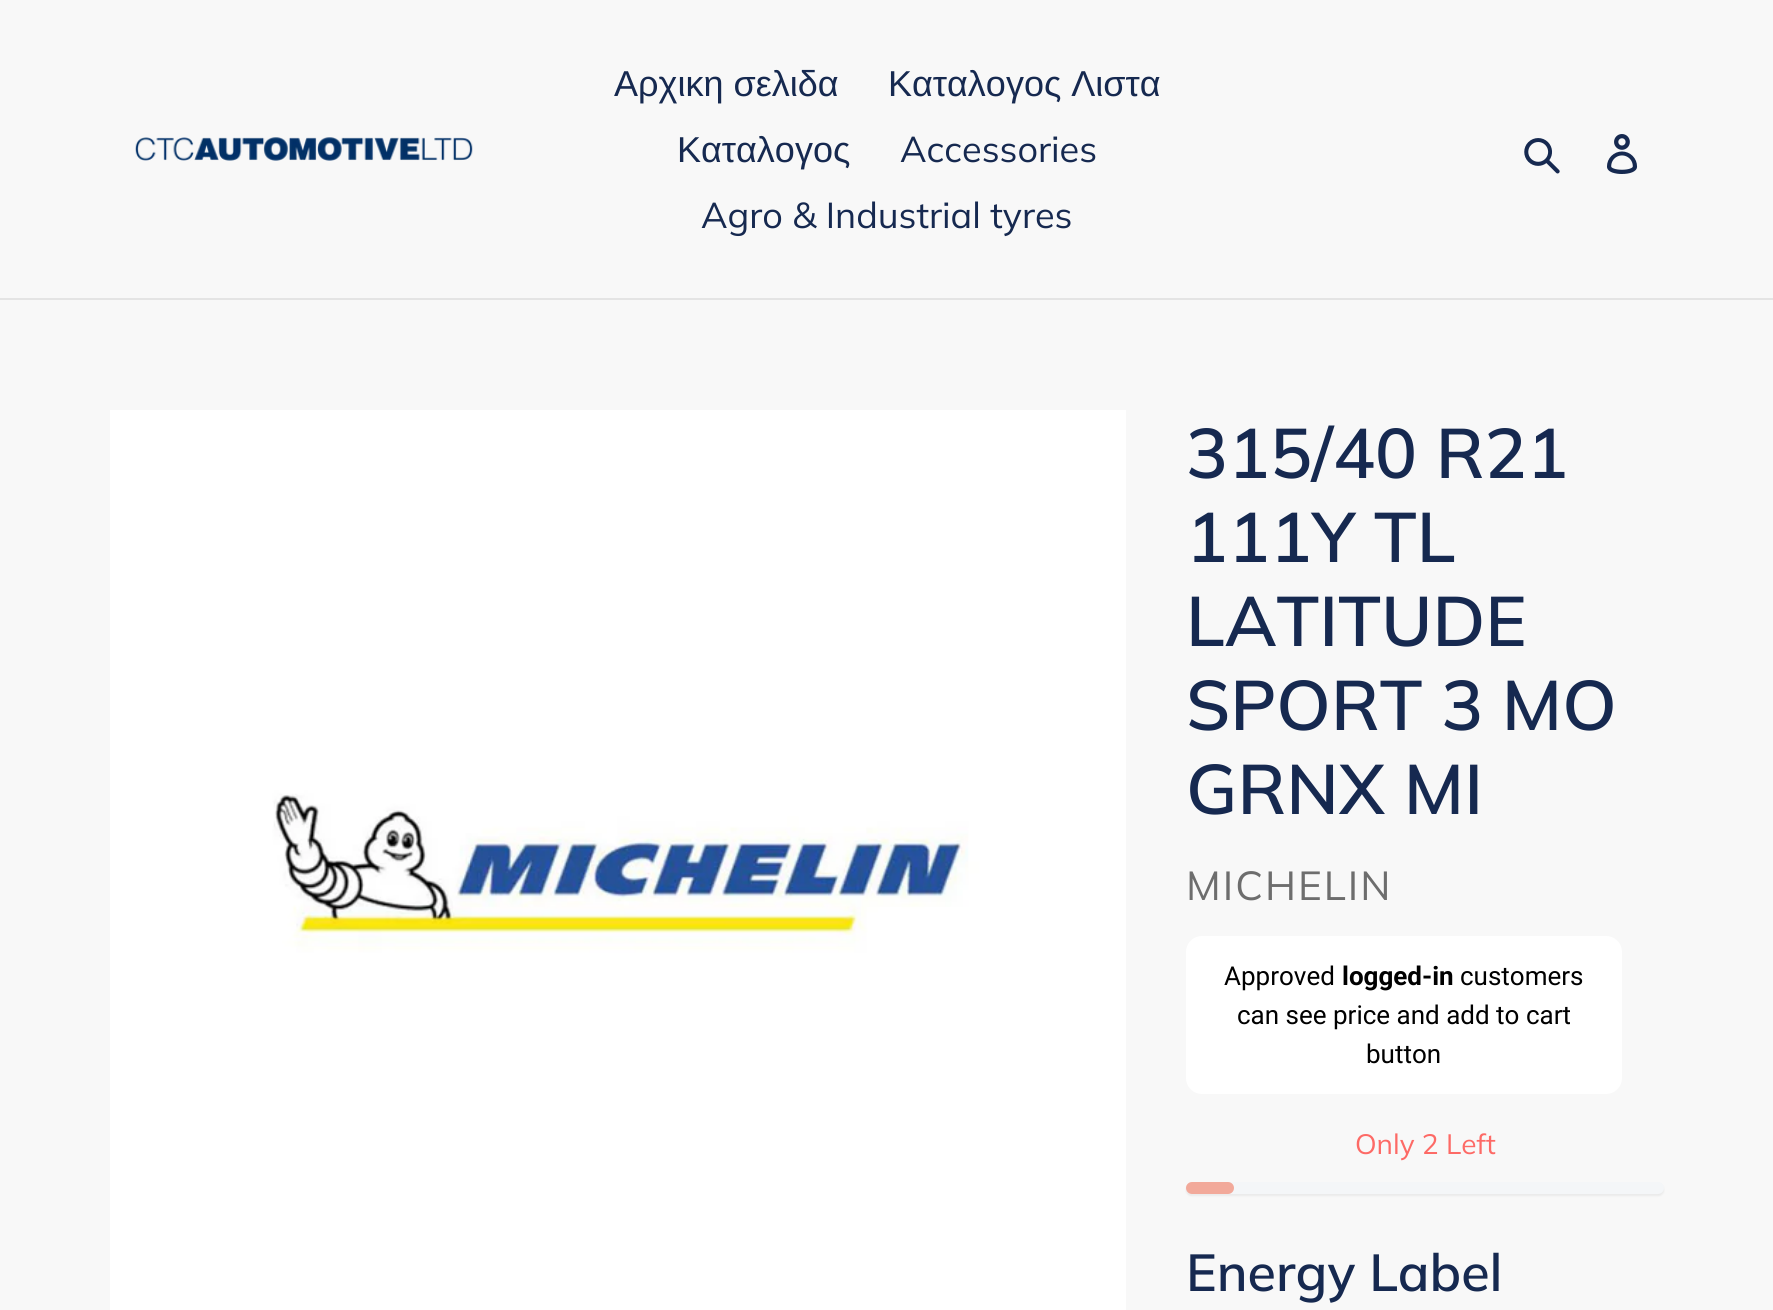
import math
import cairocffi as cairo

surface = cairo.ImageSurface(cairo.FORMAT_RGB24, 1773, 1310)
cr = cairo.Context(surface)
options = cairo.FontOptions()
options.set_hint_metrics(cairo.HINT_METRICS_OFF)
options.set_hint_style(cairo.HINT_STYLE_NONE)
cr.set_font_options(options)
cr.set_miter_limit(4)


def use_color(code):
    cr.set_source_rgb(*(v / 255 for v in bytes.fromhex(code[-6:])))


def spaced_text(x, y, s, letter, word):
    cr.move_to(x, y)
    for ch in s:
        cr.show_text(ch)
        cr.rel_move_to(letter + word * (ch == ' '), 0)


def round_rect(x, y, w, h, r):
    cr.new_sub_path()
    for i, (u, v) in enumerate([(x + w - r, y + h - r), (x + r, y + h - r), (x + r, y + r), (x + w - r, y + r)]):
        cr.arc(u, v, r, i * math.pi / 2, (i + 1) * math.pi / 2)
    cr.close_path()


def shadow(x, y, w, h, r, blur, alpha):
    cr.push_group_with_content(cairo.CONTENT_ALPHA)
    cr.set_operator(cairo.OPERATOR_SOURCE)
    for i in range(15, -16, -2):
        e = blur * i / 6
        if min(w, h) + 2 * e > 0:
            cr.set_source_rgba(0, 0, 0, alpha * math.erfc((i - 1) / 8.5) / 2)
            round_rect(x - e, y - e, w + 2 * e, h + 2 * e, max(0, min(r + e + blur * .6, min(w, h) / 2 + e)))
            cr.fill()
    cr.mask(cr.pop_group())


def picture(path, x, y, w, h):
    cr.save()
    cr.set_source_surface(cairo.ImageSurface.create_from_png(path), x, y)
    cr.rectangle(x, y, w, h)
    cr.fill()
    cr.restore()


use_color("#f8f8f8")
cr.paint()
use_color("#e4e4e4")
cr.rectangle(0, 298, 1773, 2)
cr.fill()
picture("img1.png", 135, 137, 338, 24)
cr.select_font_face("Liberation Sans")
cr.set_font_size(36)
use_color("#162950")
cr.move_to(614, 96)
cr.show_text("Αρχικη σελιδα")
cr.move_to(888, 96)
cr.show_text("Καταλογος Λιστα")
cr.move_to(677, 162)
cr.show_text("Καταλογος")
cr.select_font_face("Muli")
cr.move_to(900, 162)
cr.show_text("Accessories")
cr.move_to(701, 228)
cr.show_text("Agro & Industrial tyres")
picture("img2.png", 1524, 138, 36, 36)
picture("img3.png", 1607, 134, 31, 40)
picture("img4.png", 110, 410, 1016, 900)
cr.select_font_face("Muli SemiBold")
cr.set_font_size(70)
cr.move_to(1186, 478)
cr.show_text("315/40 R21")
cr.move_to(1186, 562)
cr.show_text("111Y TL")
cr.move_to(1186, 646)
cr.show_text("LATITUDE")
cr.move_to(1186, 730)
cr.show_text("SPORT 3 MO")
cr.move_to(1186, 814)
cr.show_text("GRNX MI")
cr.select_font_face("Muli")
cr.set_font_size(40.5)
use_color("#6d6d6d")
spaced_text(1186, 900, "MICHELIN", 2, 0)
use_color("#ffffff")
round_rect(1186, 936, 436, 158, 16)
cr.fill()
cr.select_font_face("Roboto")
cr.set_font_size(26)
use_color("#000000")
cr.move_to(1224, 985)
cr.show_text("Approved")
cr.select_font_face("Roboto", cairo.FONT_SLANT_NORMAL, cairo.FONT_WEIGHT_BOLD)
cr.move_to(1342, 985)
cr.show_text("logged-in")
cr.select_font_face("Roboto")
cr.move_to(1460, 985)
cr.show_text("customers")
cr.move_to(1237, 1024)
cr.show_text("can see price and add to cart")
cr.move_to(1366, 1063)
cr.show_text("button")
cr.select_font_face("Muli")
cr.set_font_size(28)
use_color("#fd6a66")
cr.move_to(1355, 1154)
cr.show_text("Only 2 Left")
use_color("#000000")
shadow(1186, 1184, 478, 12, 6, 1, 0.06)
use_color("#f4f6f8")
round_rect(1186, 1182, 478, 12, 6)
cr.fill()
use_color("#f2a99a")
round_rect(1186, 1182, 48, 12, 6)
cr.fill()
cr.select_font_face("Muli SemiBold")
cr.set_font_size(52)
use_color("#162950")
cr.move_to(1186, 1291)
cr.show_text("Energy Label")
surface.write_to_png("result.png")
